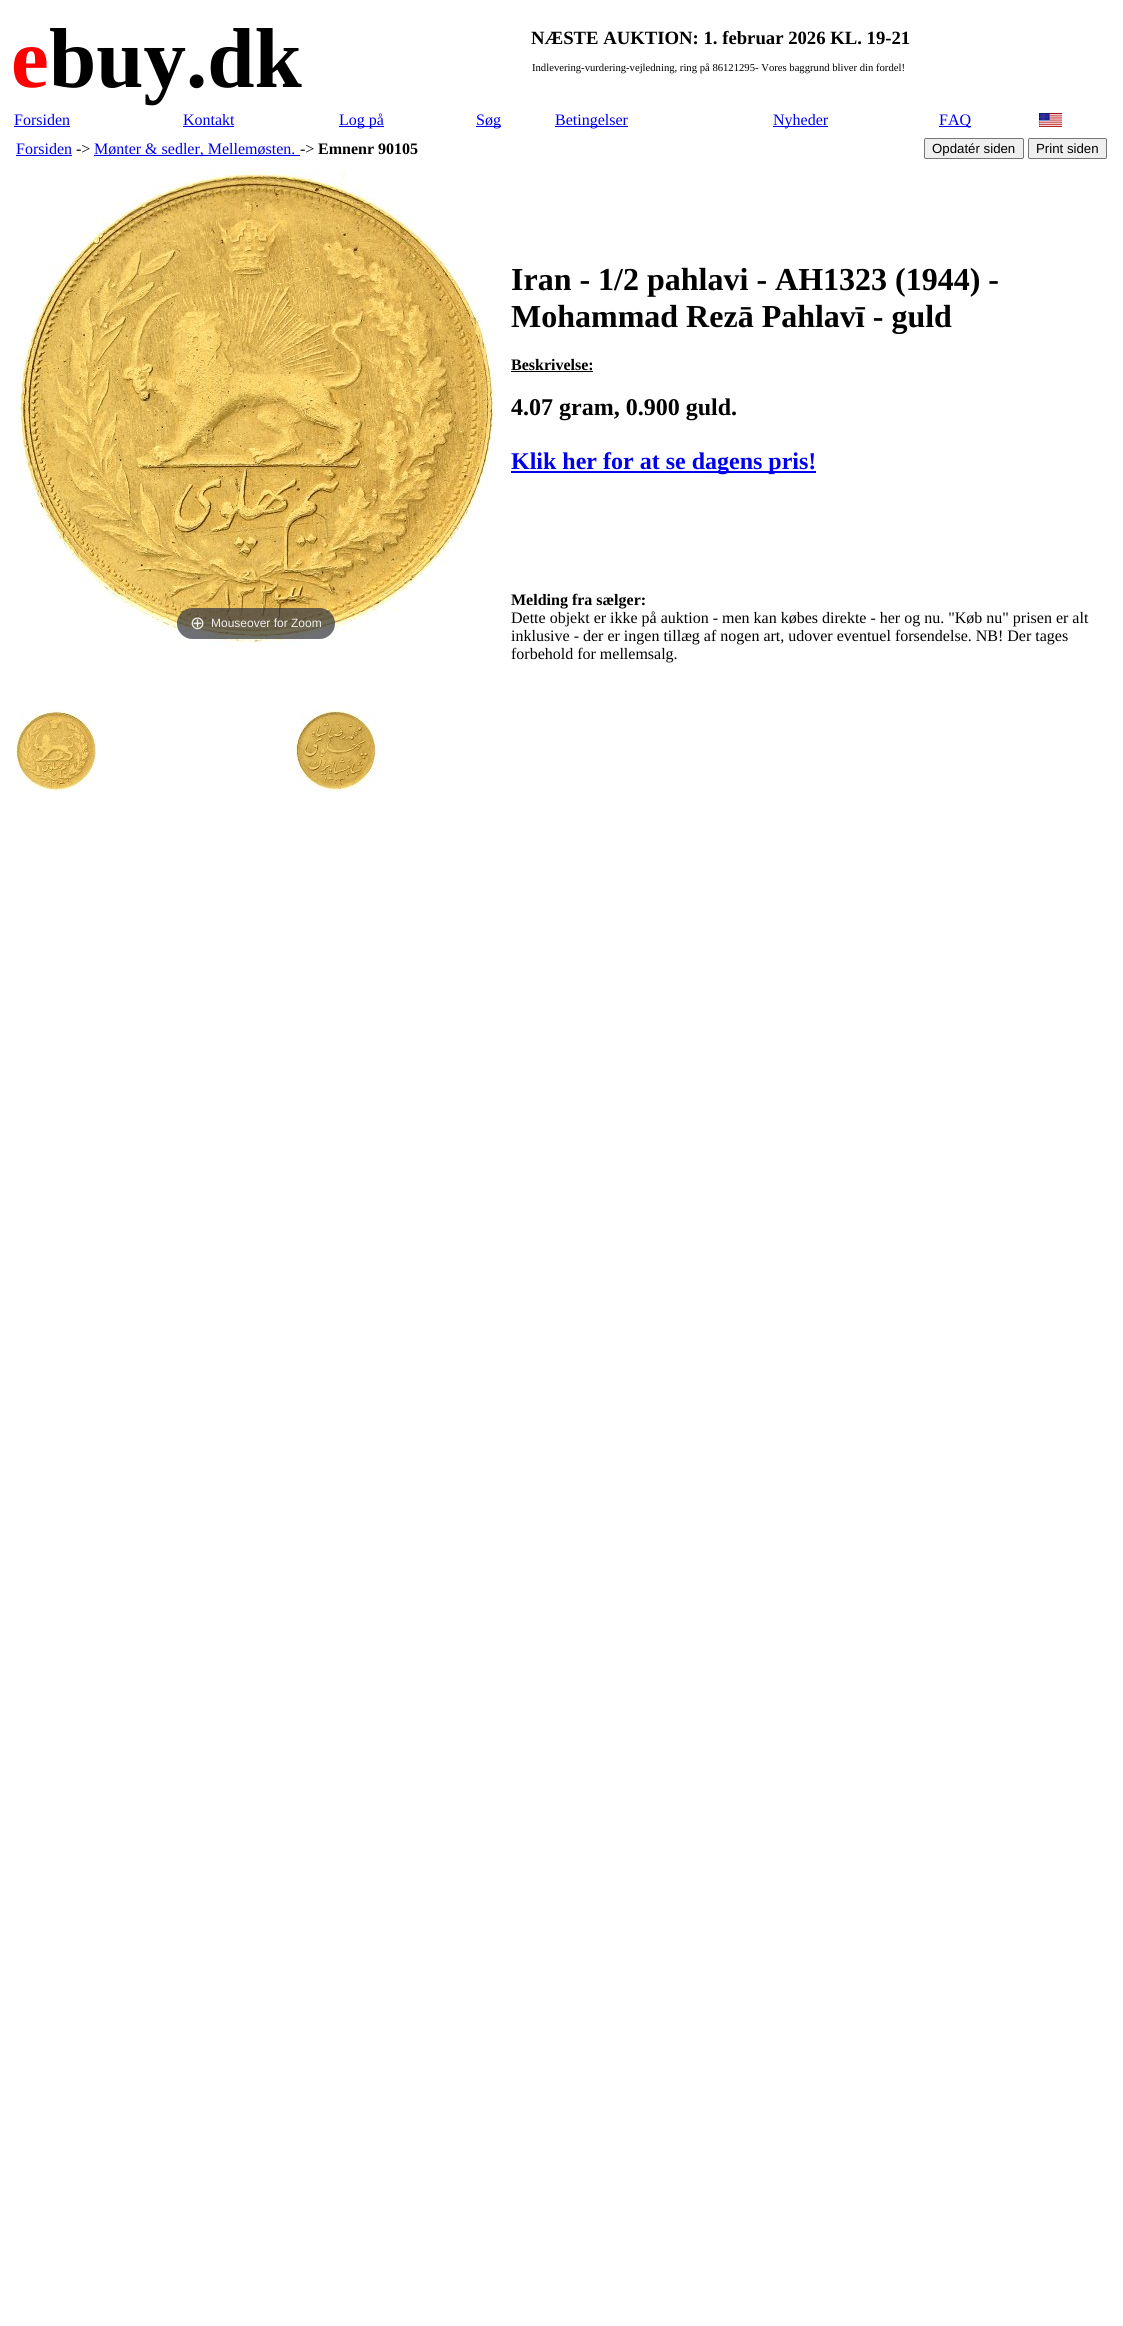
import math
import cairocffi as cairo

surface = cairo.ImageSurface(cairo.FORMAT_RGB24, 1123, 2326)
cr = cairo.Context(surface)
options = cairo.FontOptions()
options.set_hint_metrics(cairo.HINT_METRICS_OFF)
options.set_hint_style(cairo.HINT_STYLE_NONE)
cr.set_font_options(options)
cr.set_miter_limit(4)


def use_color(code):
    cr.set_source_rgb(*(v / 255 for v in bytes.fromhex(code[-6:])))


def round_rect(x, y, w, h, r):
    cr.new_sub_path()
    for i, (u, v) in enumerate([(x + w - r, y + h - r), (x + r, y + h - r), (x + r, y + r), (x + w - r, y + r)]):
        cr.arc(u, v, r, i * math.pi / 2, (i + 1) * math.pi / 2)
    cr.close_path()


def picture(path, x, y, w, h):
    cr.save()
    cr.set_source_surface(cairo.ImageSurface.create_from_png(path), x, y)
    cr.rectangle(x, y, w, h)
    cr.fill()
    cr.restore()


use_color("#ffffff")
cr.paint()
cr.select_font_face("Liberation Serif", cairo.FONT_SLANT_NORMAL, cairo.FONT_WEIGHT_BOLD)
cr.set_font_size(85)
use_color("#ff0000")
cr.move_to(11, 87)
cr.show_text("e")
use_color("#000000")
cr.move_to(49, 87)
cr.show_text("buy.dk")
cr.set_font_size(18.7)
cr.move_to(531, 44)
cr.show_text("NÆSTE AUKTION: 1. februar 2026 KL. 19-21")
cr.select_font_face("Liberation Serif")
cr.set_font_size(10.65)
cr.move_to(532, 71)
cr.show_text("Indlevering-vurdering-vejledning, ring på 86121295- Vores baggrund bliver din fordel!")
cr.set_font_size(16)
use_color("#0000ee")
cr.move_to(14, 125)
cr.show_text("Forsiden")
cr.rectangle(14, 126, 56, 1)
cr.fill()
cr.move_to(183, 125)
cr.show_text("Kontakt")
cr.rectangle(183, 126, 51, 1)
cr.fill()
cr.rectangle(339, 126, 45, 1)
cr.fill()
cr.move_to(339, 125)
cr.show_text("Log på")
cr.rectangle(476, 126, 25, 1)
cr.fill()
cr.move_to(476, 125)
cr.show_text("Søg")
cr.rectangle(555, 126, 73, 1)
cr.fill()
cr.move_to(555, 125)
cr.show_text("Betingelser")
cr.rectangle(773, 126, 55, 1)
cr.fill()
cr.move_to(773, 125)
cr.show_text("Nyheder")
cr.rectangle(939, 126, 32, 1)
cr.fill()
cr.move_to(939, 125)
cr.show_text("FAQ")
picture("img1.png", 1039, 113, 23, 14)
cr.move_to(16, 154)
cr.show_text("Forsiden")
cr.rectangle(16, 155, 56, 1)
cr.fill()
use_color("#000000")
cr.move_to(76, 154)
cr.show_text("->")
use_color("#0000ee")
cr.rectangle(94, 155, 206, 1)
cr.fill()
cr.move_to(94, 154)
cr.show_text("Mønter & sedler, Mellemøsten.")
use_color("#000000")
cr.move_to(300, 154)
cr.show_text("->")
cr.select_font_face("Liberation Serif", cairo.FONT_SLANT_NORMAL, cairo.FONT_WEIGHT_BOLD)
cr.move_to(318, 154)
cr.show_text("Emnenr 90105")
use_color("#efefef")
round_rect(924.5, 138.5, 99, 20, 1.5)
cr.fill_preserve()
use_color("#767676")
cr.set_line_width(1)
cr.stroke()
cr.select_font_face("Liberation Sans")
cr.set_font_size(13.25)
use_color("#000000")
cr.move_to(932, 153)
cr.show_text("Opdatér siden")
use_color("#efefef")
round_rect(1028.5, 138.5, 78, 20, 1.5)
cr.fill_preserve()
use_color("#767676")
cr.stroke()
use_color("#000000")
cr.move_to(1036, 153)
cr.show_text("Print siden")
picture("img2.png", 16, 167, 480, 480)
cr.set_source_rgba(0.192, 0.2, 0.239, 0.7)
round_rect(177, 608, 158, 31, 15.5)
cr.fill()
cr.select_font_face("DejaVu Sans")
cr.set_font_size(18)
use_color("#eeeeee")
cr.move_to(190, 629)
cr.show_text("⊕")
cr.select_font_face("Liberation Sans")
cr.set_font_size(12)
cr.move_to(211, 627)
cr.show_text("Mouseover for Zoom")
picture("img3.png", 16, 711, 80, 80)
picture("img4.png", 296, 711, 80, 80)
cr.select_font_face("Liberation Serif", cairo.FONT_SLANT_NORMAL, cairo.FONT_WEIGHT_BOLD)
cr.set_font_size(32)
use_color("#000000")
cr.move_to(511, 290)
cr.show_text("Iran - 1/2 pahlavi - AH1323 (1944) -")
cr.move_to(511, 327)
cr.show_text("Mohammad Rezā Pahlavī - guld")
cr.set_font_size(16)
cr.move_to(511, 370)
cr.show_text("Beskrivelse:")
cr.rectangle(511, 371, 82, 1)
cr.fill()
cr.set_font_size(24)
cr.move_to(511, 415)
cr.show_text("4.07 gram, 0.900 guld.")
use_color("#0000ee")
cr.rectangle(511, 471, 305, 2)
cr.fill()
cr.move_to(511, 469)
cr.show_text("Klik her for at se dagens pris!")
cr.set_font_size(16)
use_color("#000000")
cr.move_to(511, 605)
cr.show_text("Melding fra sælger:")
cr.select_font_face("Liberation Serif")
cr.move_to(511, 623)
cr.show_text("Dette objekt er ikke på auktion - men kan købes direkte - her og nu. \"Køb nu\" prisen er alt")
cr.move_to(511, 641)
cr.show_text("inklusive - der er ingen tillæg af nogen art, udover eventuel forsendelse. NB! Der tages")
cr.move_to(511, 659)
cr.show_text("forbehold for mellemsalg.")
surface.write_to_png("result.png")
